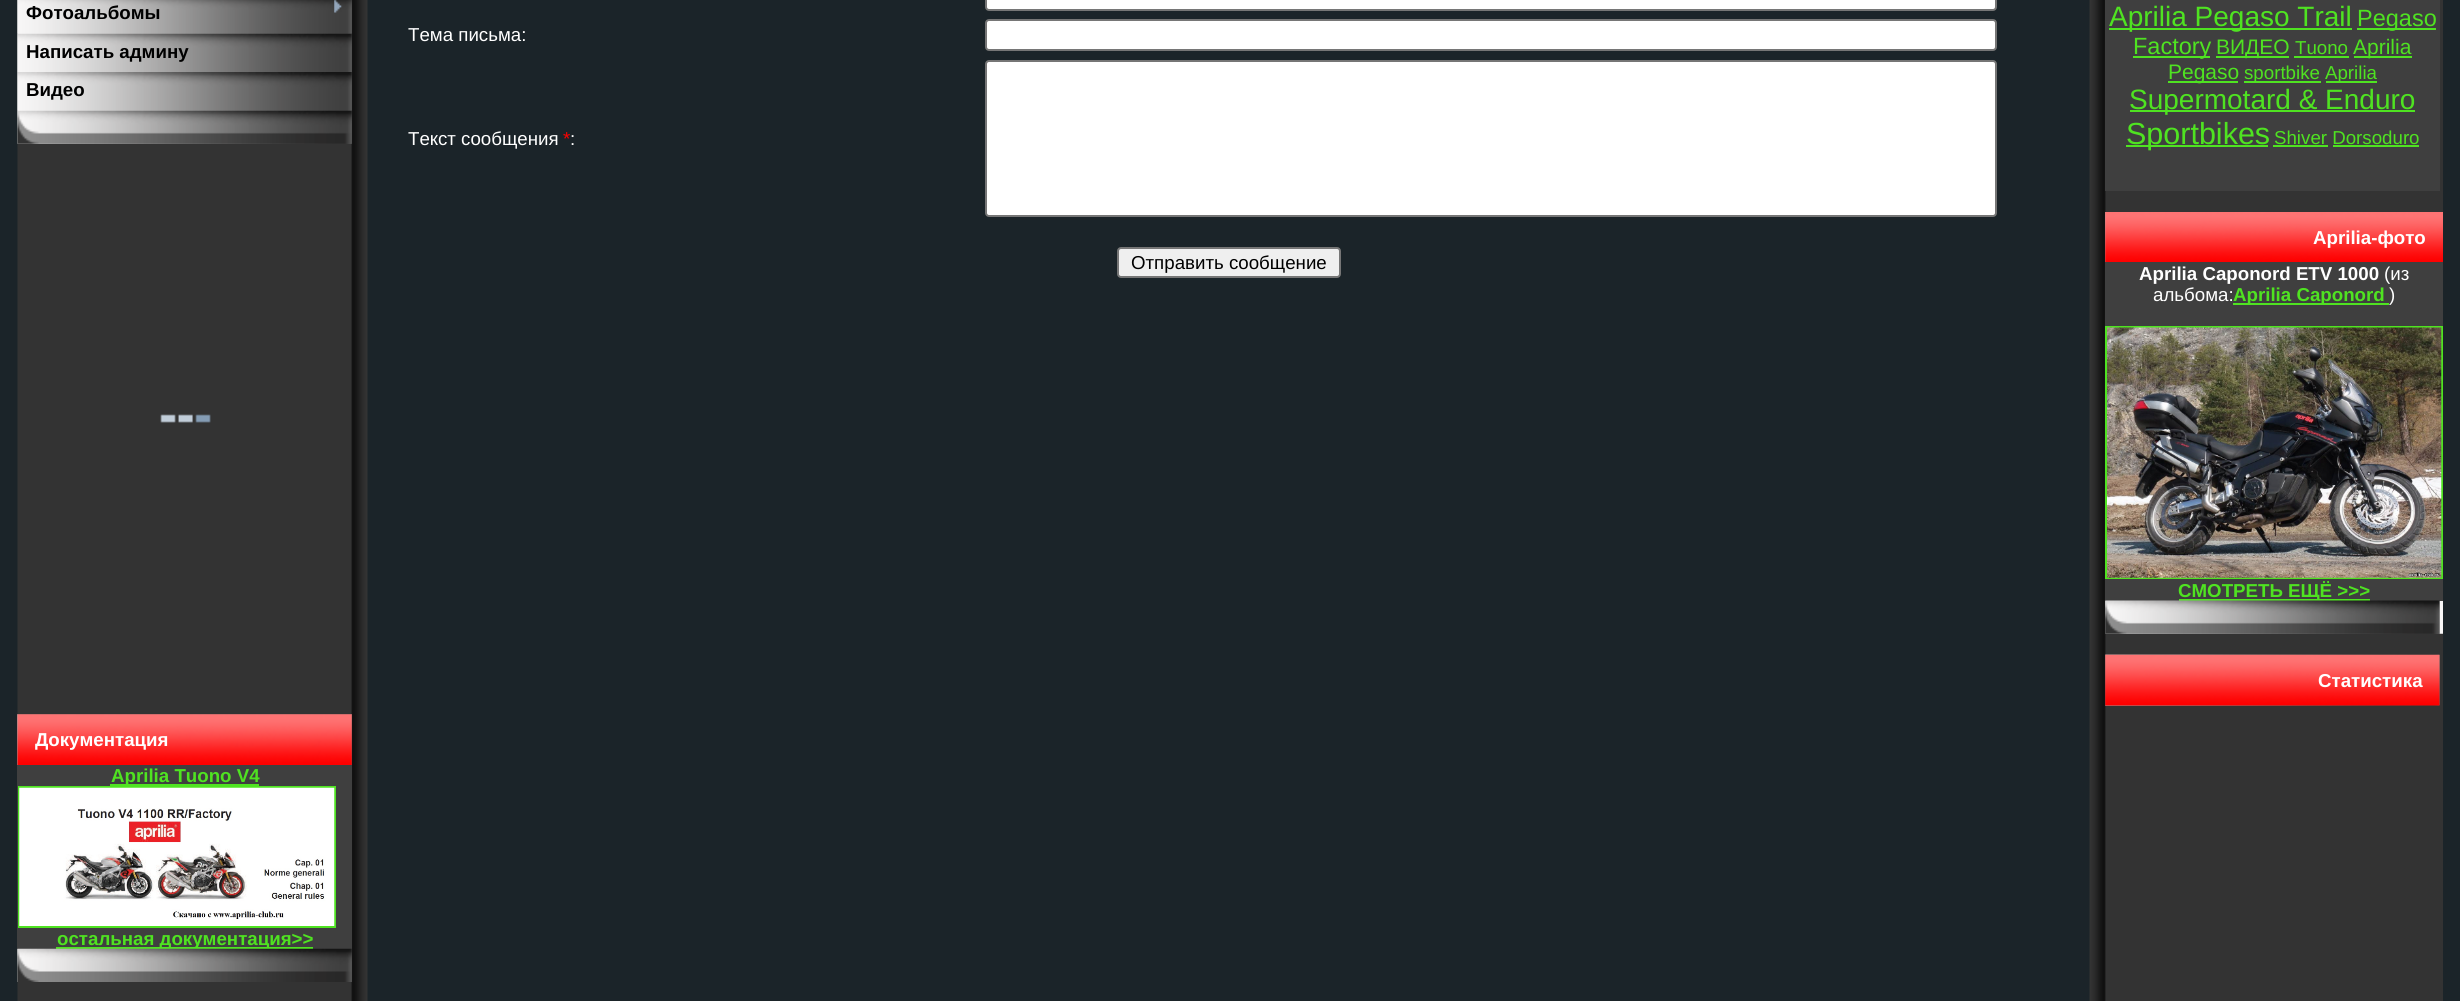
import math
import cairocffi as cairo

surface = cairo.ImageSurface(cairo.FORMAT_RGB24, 2460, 1001)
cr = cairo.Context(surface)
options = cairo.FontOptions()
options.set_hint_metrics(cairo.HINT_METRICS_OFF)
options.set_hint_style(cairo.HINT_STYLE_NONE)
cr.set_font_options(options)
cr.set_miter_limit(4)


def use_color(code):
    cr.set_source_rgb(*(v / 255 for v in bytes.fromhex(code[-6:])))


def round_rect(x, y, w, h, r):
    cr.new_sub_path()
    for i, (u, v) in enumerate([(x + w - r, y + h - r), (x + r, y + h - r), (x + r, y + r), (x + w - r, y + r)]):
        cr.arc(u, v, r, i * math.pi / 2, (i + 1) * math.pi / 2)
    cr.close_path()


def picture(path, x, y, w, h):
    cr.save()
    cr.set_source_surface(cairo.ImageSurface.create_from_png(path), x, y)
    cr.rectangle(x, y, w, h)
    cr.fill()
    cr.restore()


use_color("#1b2429")
cr.paint()
picture("img1.png", 17, 0, 351, 1001)
picture("img2.png", 17, 0, 335, 144)
picture("img5.png", 17, 33, 335, 39)
picture("img3.png", 17, 0, 335, 34)
cr.select_font_face("Liberation Sans", cairo.FONT_SLANT_NORMAL, cairo.FONT_WEIGHT_BOLD)
cr.set_font_size(18.7)
use_color("#000000")
cr.move_to(26, 19)
cr.show_text("Фотоальбомы")
picture("img4.png", 334, 0, 8, 13)
cr.move_to(26, 58)
cr.show_text("Написать админу")
picture("img7.png", 17, 110, 335, 34)
picture("img6.png", 17, 72, 335, 39)
cr.move_to(26, 96)
cr.show_text("Видео")
picture("img8.png", 160, 414, 51, 9)
picture("img9.png", 17, 714, 335, 268)
use_color("#585858")
cr.rectangle(18, 714, 334, 51)
cr.fill()
picture("img10.png", 17, 714, 335, 51)
use_color("#ffffff")
cr.move_to(35, 746)
cr.show_text("Документация")
use_color("#3f3f3f")
cr.rectangle(17, 765, 335, 184)
cr.fill()
use_color("#4fe321")
cr.rectangle(110, 784, 149, 2)
cr.fill()
cr.move_to(111, 782)
cr.show_text("Aprilia Tuono V4")
cr.rectangle(19, 787, 316, 140)
cr.stroke()
picture("img11.png", 19, 787, 316, 139)
cr.rectangle(56, 947, 257, 2)
cr.fill()
cr.move_to(57, 945)
cr.show_text("остальная документация>>")
picture("img12.png", 17, 948, 335, 34)
use_color("#ffffff")
round_rect(986, -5, 1010, 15, 3)
cr.fill_preserve()
use_color("#767676")
cr.stroke()
cr.select_font_face("Liberation Sans")
use_color("#ffffff")
cr.move_to(408, 41)
cr.show_text("Тема письма:")
round_rect(986, 20, 1010, 30, 3)
cr.fill_preserve()
use_color("#767676")
cr.stroke()
use_color("#ffffff")
cr.move_to(408, 145)
cr.show_text("Текст сообщения")
use_color("#ff0000")
cr.move_to(563, 145)
cr.show_text("*")
use_color("#ffffff")
cr.move_to(570, 145)
cr.show_text(":")
round_rect(986, 61, 1010, 155, 3)
cr.fill_preserve()
use_color("#767676")
cr.stroke()
use_color("#efefef")
round_rect(1118, 248, 222, 29, 3)
cr.fill_preserve()
use_color("#767676")
cr.stroke()
use_color("#000000")
cr.move_to(1131, 269)
cr.show_text("Отправить сообщение")
picture("img13.png", 2089, 0, 354, 1001)
use_color("#3f3f3f")
cr.rectangle(2105, 0, 335, 191)
cr.fill()
use_color("#4fe321")
cr.rectangle(2109, 28, 243, 2)
cr.fill()
cr.set_font_size(28)
cr.move_to(2109, 26)
cr.show_text("Aprilia Pegaso Trail")
cr.rectangle(2357, 28, 79, 2)
cr.fill()
cr.set_font_size(23.5)
cr.move_to(2357, 26)
cr.show_text("Pegaso")
cr.rectangle(2133, 56, 77, 2)
cr.fill()
cr.move_to(2133, 54)
cr.show_text("Factory")
cr.rectangle(2216, 56, 73, 2)
cr.fill()
cr.set_font_size(21)
cr.move_to(2216, 54)
cr.show_text("ВИДЕО")
cr.set_font_size(18.7)
cr.move_to(2295, 54)
cr.show_text("Tuono")
cr.rectangle(2294, 56, 55, 2)
cr.fill()
cr.rectangle(2354, 56, 58, 2)
cr.fill()
cr.set_font_size(21)
cr.move_to(2353, 54)
cr.show_text("Aprilia")
cr.rectangle(2168, 81, 70, 2)
cr.fill()
cr.move_to(2168, 79)
cr.show_text("Pegaso")
cr.rectangle(2244, 81, 77, 2)
cr.fill()
cr.set_font_size(18.7)
cr.move_to(2244, 79)
cr.show_text("sportbike")
cr.rectangle(2326, 81, 51, 2)
cr.fill()
cr.move_to(2325, 79)
cr.show_text("Aprilia")
cr.rectangle(2130, 110, 285, 2)
cr.fill()
cr.set_font_size(28)
cr.move_to(2129, 109)
cr.show_text("Supermotard & Enduro")
cr.rectangle(2126, 145, 142, 2)
cr.fill()
cr.set_font_size(30.5)
cr.move_to(2126, 144)
cr.show_text("Sportbikes")
cr.set_font_size(18.7)
cr.move_to(2274, 144)
cr.show_text("Shiver Dorsoduro")
cr.rectangle(2273, 145, 55, 2)
cr.fill()
cr.rectangle(2333, 145, 86, 2)
cr.fill()
picture("img14.png", 2105, 212, 338, 422)
picture("img15.png", 2105, 212, 338, 50)
cr.select_font_face("Liberation Sans", cairo.FONT_SLANT_NORMAL, cairo.FONT_WEIGHT_BOLD)
use_color("#ffffff")
cr.move_to(2313, 244)
cr.show_text("Aprilia-фото")
use_color("#3f3f3f")
cr.rectangle(2105, 262, 338, 339)
cr.fill()
use_color("#ffffff")
cr.move_to(2139, 280)
cr.show_text("Aprilia Caponord ETV 1000")
cr.select_font_face("Liberation Sans")
cr.move_to(2384, 280)
cr.show_text("(из")
cr.move_to(2153, 301)
cr.show_text("альбома:")
use_color("#4fe321")
cr.rectangle(2233, 303, 156, 2)
cr.fill()
cr.select_font_face("Liberation Sans", cairo.FONT_SLANT_NORMAL, cairo.FONT_WEIGHT_BOLD)
cr.move_to(2233, 301)
cr.show_text("Aprilia Caponord")
cr.select_font_face("Liberation Sans")
use_color("#ffffff")
cr.move_to(2389, 301)
cr.show_text(")")
cr.rectangle(2106, 327, 336, 251)
use_color("#4fe321")
cr.stroke()
picture("img16.png", 2107, 327, 335, 251)
cr.rectangle(2179, 599, 191, 2)
cr.fill()
cr.select_font_face("Liberation Sans", cairo.FONT_SLANT_NORMAL, cairo.FONT_WEIGHT_BOLD)
cr.move_to(2178, 597)
cr.show_text("СМОТРЕТЬ ЕЩЁ >>>")
picture("img17.png", 2105, 600, 335, 34)
picture("img18.png", 2105, 654, 335, 52)
use_color("#585858")
cr.rectangle(2105, 655, 335, 50)
cr.fill()
picture("img19.png", 2105, 654, 335, 52)
use_color("#ffffff")
cr.move_to(2318, 687)
cr.show_text("Статистика")
surface.write_to_png("result.png")
